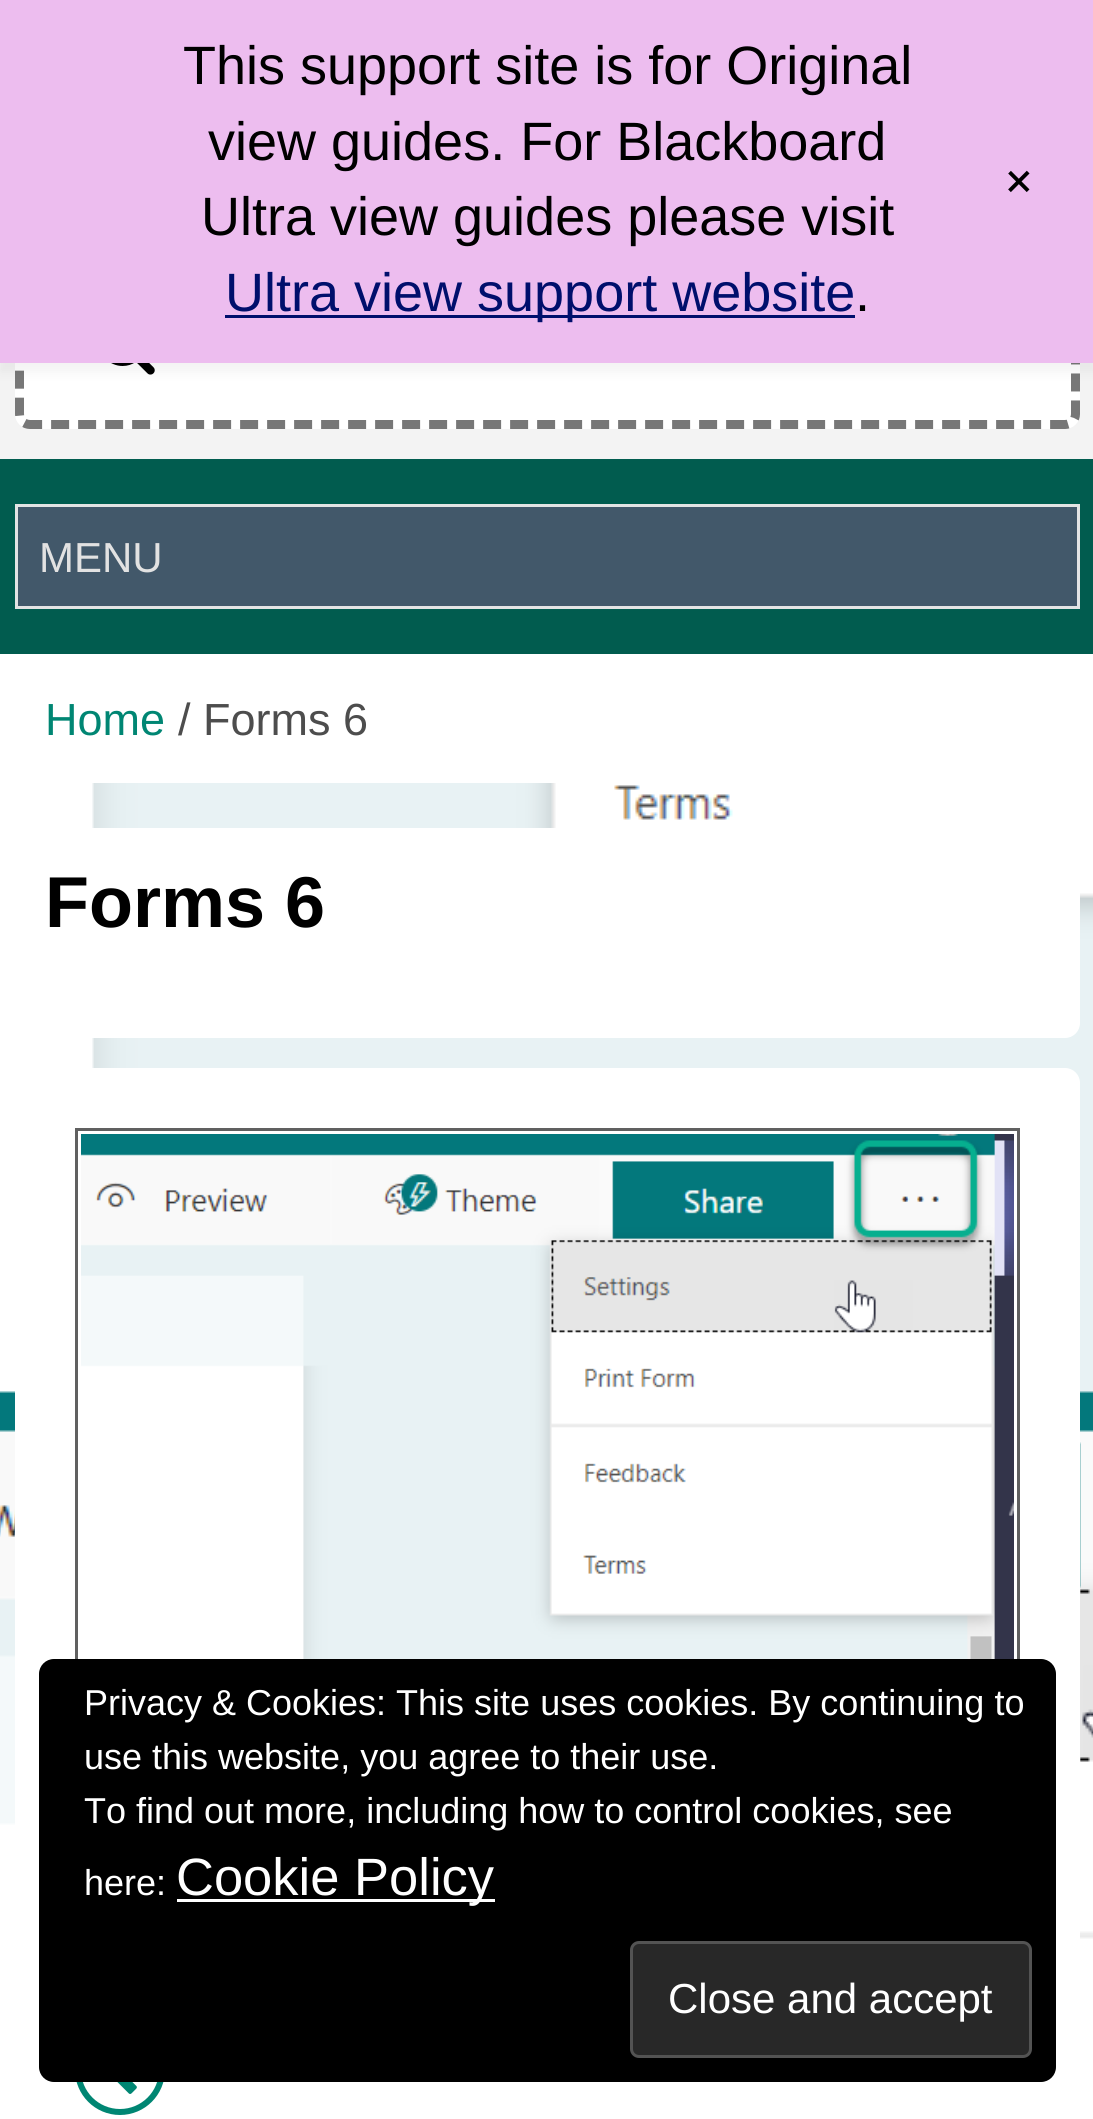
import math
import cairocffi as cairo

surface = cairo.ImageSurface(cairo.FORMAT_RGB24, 1093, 2119)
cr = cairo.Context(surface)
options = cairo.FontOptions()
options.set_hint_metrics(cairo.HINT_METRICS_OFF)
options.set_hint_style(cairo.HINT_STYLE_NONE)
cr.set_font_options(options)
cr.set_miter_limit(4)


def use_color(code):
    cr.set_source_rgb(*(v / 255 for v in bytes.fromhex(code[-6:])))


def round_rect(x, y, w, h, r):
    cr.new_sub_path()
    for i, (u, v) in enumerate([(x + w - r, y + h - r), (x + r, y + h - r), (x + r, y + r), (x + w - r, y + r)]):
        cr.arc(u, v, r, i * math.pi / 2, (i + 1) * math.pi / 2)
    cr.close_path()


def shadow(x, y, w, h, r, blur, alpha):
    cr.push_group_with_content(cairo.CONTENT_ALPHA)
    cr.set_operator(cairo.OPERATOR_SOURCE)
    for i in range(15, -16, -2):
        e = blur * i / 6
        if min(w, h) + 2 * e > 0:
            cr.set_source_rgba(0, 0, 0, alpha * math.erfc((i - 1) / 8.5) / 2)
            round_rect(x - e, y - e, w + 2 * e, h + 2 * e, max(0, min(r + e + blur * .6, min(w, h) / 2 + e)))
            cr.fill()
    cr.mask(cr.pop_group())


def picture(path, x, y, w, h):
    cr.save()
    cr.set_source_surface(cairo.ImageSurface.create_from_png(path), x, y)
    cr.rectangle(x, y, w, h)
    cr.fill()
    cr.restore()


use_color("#ffffff")
cr.paint()
picture("img1.png", 0, 783, 1093, 1336)
use_color("#f3f3f3")
cr.rectangle(0, 363, 1093, 96)
cr.fill()
use_color("#ffffff")
round_rect(15, 249, 1065, 180, 15)
cr.fill()
cr.new_path()
cr.move_to(30, 253.5)
cr.line_to(1065, 253.5)
cr.curve_to(1071, 253.5, 1075.5, 258, 1075.5, 264)
cr.line_to(1075.5, 414)
cr.curve_to(1075.5, 420, 1071, 424.5, 1065, 424.5)
cr.line_to(30, 424.5)
cr.curve_to(24, 424.5, 19.5, 420, 19.5, 414)
cr.line_to(19.5, 264)
cr.curve_to(19.5, 258, 24, 253.5, 30, 253.5)
cr.close_path()
use_color("#777777")
cr.set_line_width(9)
cr.set_dash([18, 9])
cr.stroke()
picture("img2.png", 111, 363, 44, 12)
use_color("#000000")
shadow(0, 9, 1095, 363, 0, 6, 0.05)
use_color("#edbdef")
cr.rectangle(0, 0, 1093, 363)
cr.fill()
cr.select_font_face("Liberation Sans")
cr.set_font_size(54)
use_color("#000000")
cr.move_to(183, 84)
cr.show_text("This support site is for Original")
cr.move_to(208, 160)
cr.show_text("view guides. For Blackboard")
cr.move_to(201, 235)
cr.show_text("Ultra view guides please visit")
use_color("#000f6c")
cr.rectangle(225, 315, 630, 3)
cr.fill()
cr.move_to(225, 311)
cr.show_text("Ultra view support website")
use_color("#000000")
cr.move_to(855, 311)
cr.show_text(".")
cr.save()
cr.translate(995, 183)
cr.rotate(45 * math.pi / 180)
cr.move_to(0, 0)
cr.show_text("+")
cr.restore()
use_color("#015c4f")
cr.rectangle(0, 459, 1093, 195)
cr.fill()
use_color("#42586a")
cr.rectangle(16.5, 505.5, 1062, 102)
cr.fill_preserve()
use_color("#e3e4e4")
cr.set_line_width(3)
cr.set_dash([])
cr.stroke()
cr.set_font_size(42)
use_color("#e2e2e2")
cr.move_to(39, 572)
cr.show_text("MENU")
cr.set_font_size(45)
use_color("#008673")
cr.move_to(45, 735)
cr.show_text("Home")
use_color("#4d4d4d")
cr.move_to(178, 735)
cr.show_text("/ Forms 6")
use_color("#ffffff")
round_rect(15, 828, 1065, 210, 15)
cr.fill()
cr.select_font_face("Liberation Sans", cairo.FONT_SLANT_NORMAL, cairo.FONT_WEIGHT_BOLD)
cr.set_font_size(72)
use_color("#000000")
cr.move_to(45, 927)
cr.show_text("Forms 6")
use_color("#ffffff")
round_rect(15, 1068, 1065, 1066, 15)
cr.fill()
cr.rectangle(76.5, 1129.5, 942, 756)
use_color("#606060")
cr.stroke()
picture("img3.png", 81, 1134, 933, 525)
cr.arc(120, 2070, 42, 0, 2 * math.pi)
use_color("#008673")
cr.set_line_width(6)
cr.stroke()
picture("img4.png", 117, 2082, 20, 12)
use_color("#000000")
round_rect(39, 1659, 1017, 423, 15)
cr.fill()
cr.select_font_face("Liberation Sans")
cr.set_font_size(36)
use_color("#ffffff")
cr.move_to(84, 1715)
cr.show_text("Privacy & Cookies: This site uses cookies. By continuing to")
cr.move_to(84, 1769)
cr.show_text("use this website, you agree to their use.")
cr.move_to(84, 1823)
cr.show_text("To find out more, including how to control cookies, see")
cr.move_to(84, 1895)
cr.show_text("here:")
cr.rectangle(177, 1899, 318, 3)
cr.fill()
cr.set_font_size(52.5)
cr.move_to(176, 1895)
cr.show_text("Cookie Policy")
use_color("#282828")
round_rect(631.5, 1942.5, 399, 114, 7.5)
cr.fill_preserve()
use_color("#535353")
cr.set_line_width(3)
cr.stroke()
cr.set_font_size(42)
use_color("#ffffff")
cr.move_to(668, 2013)
cr.show_text("Close and accept")
surface.write_to_png("result.png")
